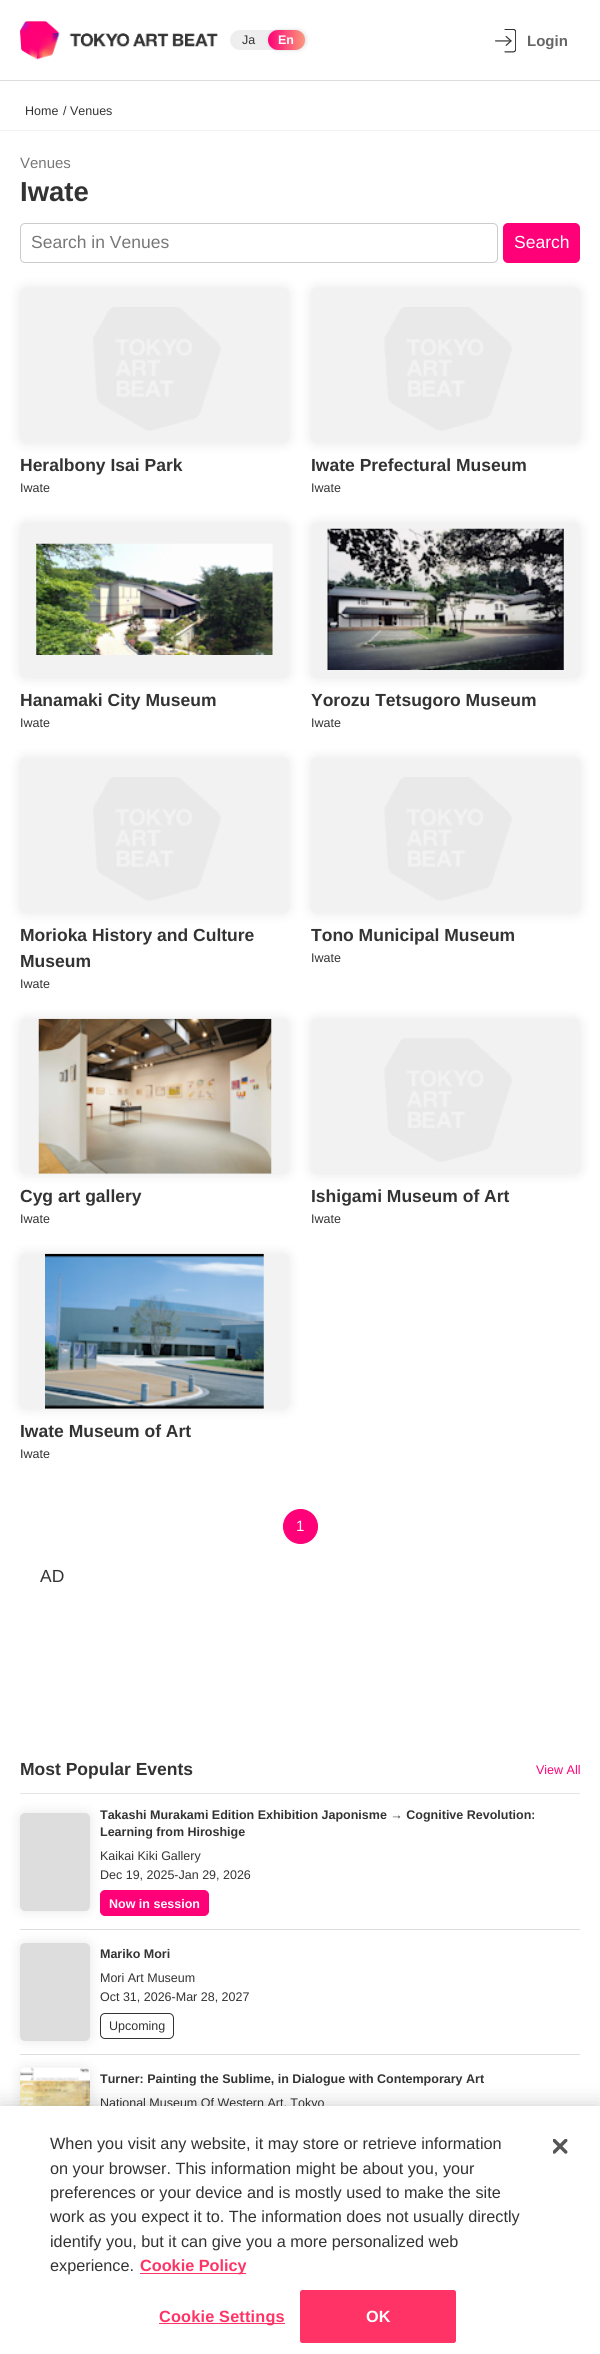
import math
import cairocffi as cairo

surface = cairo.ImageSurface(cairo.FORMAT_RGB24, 600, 2354)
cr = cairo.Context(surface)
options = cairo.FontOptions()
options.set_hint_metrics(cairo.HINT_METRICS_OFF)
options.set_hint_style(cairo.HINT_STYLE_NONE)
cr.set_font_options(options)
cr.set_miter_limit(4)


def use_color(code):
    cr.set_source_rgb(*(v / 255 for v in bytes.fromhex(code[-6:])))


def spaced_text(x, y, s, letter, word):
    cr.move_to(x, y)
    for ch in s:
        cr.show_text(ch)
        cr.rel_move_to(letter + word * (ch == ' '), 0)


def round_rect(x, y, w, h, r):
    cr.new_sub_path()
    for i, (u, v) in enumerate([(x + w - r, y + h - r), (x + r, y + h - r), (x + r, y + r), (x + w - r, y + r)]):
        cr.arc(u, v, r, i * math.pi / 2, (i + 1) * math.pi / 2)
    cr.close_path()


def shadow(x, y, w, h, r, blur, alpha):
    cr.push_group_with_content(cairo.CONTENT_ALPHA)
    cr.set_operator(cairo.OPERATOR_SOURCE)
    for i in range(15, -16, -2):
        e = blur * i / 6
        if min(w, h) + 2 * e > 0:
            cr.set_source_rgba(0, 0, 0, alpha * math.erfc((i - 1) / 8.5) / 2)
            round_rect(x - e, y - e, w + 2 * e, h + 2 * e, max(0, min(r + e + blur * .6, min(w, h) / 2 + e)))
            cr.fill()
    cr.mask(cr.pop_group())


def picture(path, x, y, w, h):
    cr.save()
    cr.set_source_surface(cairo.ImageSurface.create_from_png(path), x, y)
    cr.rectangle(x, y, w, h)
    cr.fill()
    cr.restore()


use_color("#ffffff")
cr.paint()
use_color("#dddddd")
cr.rectangle(0, 80, 600, 1)
cr.fill()
picture("img1.png", 20, 21, 198, 39)
use_color("#eeeeee")
round_rect(230, 30, 75, 20, 10)
cr.fill()
cr.select_font_face("Liberation Sans")
cr.set_font_size(12.5)
use_color("#333333")
cr.move_to(242, 44)
cr.show_text("Ja")
use_color("#000000")
shadow(269, 30, 37, 20, 10, 2, 0.15)
gradient = cairo.LinearGradient(305, 40, 268, 40)
gradient.add_color_stop_rgba(0, 0.984, 0.604, 0.478, 1)
gradient.add_color_stop_rgba(1, 1, 0, 0.471, 1)
cr.set_source(gradient)
round_rect(268, 30, 37, 20, 10)
cr.fill()
cr.select_font_face("Liberation Sans", cairo.FONT_SLANT_NORMAL, cairo.FONT_WEIGHT_BOLD)
use_color("#ffffff")
cr.move_to(278, 44)
cr.show_text("En")
picture("img2.png", 495, 29, 21, 24)
cr.set_font_size(15)
use_color("#666666")
cr.move_to(527, 46)
cr.show_text("Login")
use_color("#f2f2f2")
cr.rectangle(0, 130, 600, 1)
cr.fill()
cr.select_font_face("Liberation Sans")
cr.set_font_size(12.5)
use_color("#333333")
cr.move_to(25, 115)
cr.show_text("Home")
cr.move_to(63, 115)
cr.show_text("/ Venues")
cr.set_font_size(15)
use_color("#777777")
cr.move_to(20, 168)
cr.show_text("Venues")
cr.select_font_face("Liberation Sans", cairo.FONT_SLANT_NORMAL, cairo.FONT_WEIGHT_BOLD)
cr.set_font_size(27.5)
use_color("#333333")
cr.move_to(20, 201)
cr.show_text("Iwate")
round_rect(20.5, 223.5, 477, 39, 4.5)
use_color("#cccccc")
cr.set_line_width(1)
cr.stroke()
cr.select_font_face("Liberation Sans")
cr.set_font_size(17.5)
use_color("#777777")
cr.move_to(31, 248)
cr.show_text("Search in Venues")
use_color("#ff0078")
round_rect(503, 223, 77, 40, 5)
cr.fill()
use_color("#ffffff")
cr.move_to(514, 248)
cr.show_text("Search")
use_color("#000000")
shadow(20, 288, 269, 155, 5, 6, 0.1)
use_color("#f2f2f2")
round_rect(20, 288, 269, 155, 5)
cr.fill()
picture("img3.png", 93, 307, 128, 124)
cr.select_font_face("Liberation Sans", cairo.FONT_SLANT_NORMAL, cairo.FONT_WEIGHT_BOLD)
use_color("#333333")
cr.move_to(20, 471)
cr.show_text("Heralbony Isai Park")
cr.select_font_face("Liberation Sans")
cr.set_font_size(12.5)
cr.move_to(20, 492)
cr.show_text("Iwate")
use_color("#000000")
shadow(311, 288, 269, 155, 5, 6, 0.1)
use_color("#f2f2f2")
round_rect(311, 288, 269, 155, 5)
cr.fill()
picture("img4.png", 384, 307, 128, 124)
cr.select_font_face("Liberation Sans", cairo.FONT_SLANT_NORMAL, cairo.FONT_WEIGHT_BOLD)
cr.set_font_size(17.5)
use_color("#333333")
cr.move_to(311, 471)
cr.show_text("Iwate Prefectural Museum")
cr.select_font_face("Liberation Sans")
cr.set_font_size(12.5)
cr.move_to(311, 492)
cr.show_text("Iwate")
use_color("#000000")
shadow(20, 523, 269, 155, 5, 6, 0.1)
use_color("#f2f2f2")
round_rect(20, 523, 269, 155, 5)
cr.fill()
picture("img5.png", 36, 543, 237, 112)
cr.select_font_face("Liberation Sans", cairo.FONT_SLANT_NORMAL, cairo.FONT_WEIGHT_BOLD)
cr.set_font_size(17.5)
use_color("#333333")
cr.move_to(20, 706)
cr.show_text("Hanamaki City Museum")
cr.select_font_face("Liberation Sans")
cr.set_font_size(12.5)
cr.move_to(20, 727)
cr.show_text("Iwate")
use_color("#000000")
shadow(311, 523, 269, 155, 5, 6, 0.1)
use_color("#f2f2f2")
round_rect(311, 523, 269, 155, 5)
cr.fill()
picture("img6.png", 327, 528, 237, 142)
cr.select_font_face("Liberation Sans", cairo.FONT_SLANT_NORMAL, cairo.FONT_WEIGHT_BOLD)
cr.set_font_size(17.5)
use_color("#333333")
cr.move_to(311, 706)
cr.show_text("Yorozu Tetsugoro Museum")
cr.select_font_face("Liberation Sans")
cr.set_font_size(12.5)
cr.move_to(311, 727)
cr.show_text("Iwate")
use_color("#000000")
shadow(20, 758, 269, 155, 5, 6, 0.1)
use_color("#f2f2f2")
round_rect(20, 758, 269, 155, 5)
cr.fill()
picture("img3.png", 93, 777, 128, 124)
cr.select_font_face("Liberation Sans", cairo.FONT_SLANT_NORMAL, cairo.FONT_WEIGHT_BOLD)
cr.set_font_size(17.5)
use_color("#333333")
cr.move_to(20, 941)
cr.show_text("Morioka History and Culture")
cr.move_to(20, 967)
cr.show_text("Museum")
cr.select_font_face("Liberation Sans")
cr.set_font_size(12.5)
cr.move_to(20, 988)
cr.show_text("Iwate")
use_color("#000000")
shadow(311, 758, 269, 155, 5, 6, 0.1)
use_color("#f2f2f2")
round_rect(311, 758, 269, 155, 5)
cr.fill()
picture("img4.png", 384, 777, 128, 124)
cr.select_font_face("Liberation Sans", cairo.FONT_SLANT_NORMAL, cairo.FONT_WEIGHT_BOLD)
cr.set_font_size(17.5)
use_color("#333333")
cr.move_to(311, 941)
cr.show_text("Tono Municipal Museum")
cr.select_font_face("Liberation Sans")
cr.set_font_size(12.5)
cr.move_to(311, 962)
cr.show_text("Iwate")
use_color("#000000")
shadow(20, 1019, 269, 155, 5, 6, 0.1)
use_color("#f2f2f2")
round_rect(20, 1019, 269, 155, 5)
cr.fill()
picture("img7.png", 38, 1018, 234, 156)
cr.select_font_face("Liberation Sans", cairo.FONT_SLANT_NORMAL, cairo.FONT_WEIGHT_BOLD)
cr.set_font_size(17.5)
use_color("#333333")
cr.move_to(20, 1202)
cr.show_text("Cyg art gallery")
cr.select_font_face("Liberation Sans")
cr.set_font_size(12.5)
cr.move_to(20, 1223)
cr.show_text("Iwate")
use_color("#000000")
shadow(311, 1019, 269, 155, 5, 6, 0.1)
use_color("#f2f2f2")
round_rect(311, 1019, 269, 155, 5)
cr.fill()
picture("img8.png", 384, 1038, 128, 124)
cr.select_font_face("Liberation Sans", cairo.FONT_SLANT_NORMAL, cairo.FONT_WEIGHT_BOLD)
cr.set_font_size(17.5)
use_color("#333333")
cr.move_to(311, 1202)
cr.show_text("Ishigami Museum of Art")
cr.select_font_face("Liberation Sans")
cr.set_font_size(12.5)
cr.move_to(311, 1223)
cr.show_text("Iwate")
use_color("#000000")
shadow(20, 1254, 269, 155, 5, 6, 0.1)
use_color("#f2f2f2")
round_rect(20, 1254, 269, 155, 5)
cr.fill()
picture("img9.png", 45, 1253, 219, 156)
cr.select_font_face("Liberation Sans", cairo.FONT_SLANT_NORMAL, cairo.FONT_WEIGHT_BOLD)
cr.set_font_size(17.5)
use_color("#333333")
cr.move_to(20, 1437)
cr.show_text("Iwate Museum of Art")
cr.select_font_face("Liberation Sans")
cr.set_font_size(12.5)
cr.move_to(20, 1458)
cr.show_text("Iwate")
use_color("#ff0078")
cr.new_path()
cr.arc(300.5, 1526.5, 17, 0, 2 * math.pi)
cr.fill_preserve()
cr.stroke()
cr.set_font_size(15)
use_color("#ffffff")
cr.move_to(296, 1531)
cr.show_text("1")
cr.set_font_size(17.5)
use_color("#333333")
cr.move_to(40, 1582)
cr.show_text("AD")
use_color("#e5e5e5")
cr.rectangle(20, 1793, 560, 1)
cr.fill()
cr.select_font_face("Liberation Sans", cairo.FONT_SLANT_NORMAL, cairo.FONT_WEIGHT_BOLD)
use_color("#333333")
cr.move_to(20, 1775)
cr.show_text("Most Popular Events")
cr.select_font_face("Liberation Sans")
cr.set_font_size(12.5)
use_color("#ff0078")
cr.move_to(536, 1774)
cr.show_text("View All")
use_color("#dddddd")
cr.rectangle(20, 1929, 560, 1)
cr.fill()
use_color("#ff0078")
round_rect(100.5, 1890.5, 108, 25, 4.5)
cr.fill_preserve()
cr.stroke()
use_color("#000000")
shadow(20, 1813, 70, 98, 5, 6, 0.1)
use_color("#dddddd")
round_rect(20, 1813, 70, 98, 5)
cr.fill()
cr.select_font_face("Liberation Sans", cairo.FONT_SLANT_NORMAL, cairo.FONT_WEIGHT_BOLD)
use_color("#333333")
cr.move_to(100, 1819)
cr.show_text("Takashi Murakami Edition Exhibition Japonisme → Cognitive Revolution:")
cr.move_to(100, 1836)
cr.show_text("Learning from Hiroshige")
cr.select_font_face("Liberation Sans")
cr.move_to(100, 1860)
cr.show_text("Kaikai Kiki Gallery")
cr.move_to(100, 1879)
cr.show_text("Dec 19, 2025-Jan 29, 2026")
cr.select_font_face("Liberation Sans", cairo.FONT_SLANT_NORMAL, cairo.FONT_WEIGHT_BOLD)
use_color("#ffffff")
cr.move_to(109, 1908)
cr.show_text("Now in session")
use_color("#dddddd")
cr.rectangle(20, 2054, 560, 1)
cr.fill()
round_rect(100.5, 2013.5, 73, 25, 4.5)
use_color("#333333")
cr.stroke()
use_color("#000000")
shadow(20, 1943, 70, 98, 5, 6, 0.1)
use_color("#dddddd")
round_rect(20, 1943, 70, 98, 5)
cr.fill()
use_color("#333333")
cr.move_to(100, 1958)
cr.show_text("Mariko Mori")
cr.select_font_face("Liberation Sans")
cr.move_to(100, 1982)
cr.show_text("Mori Art Museum")
cr.move_to(100, 2001)
cr.show_text("Oct 31, 2026-Mar 28, 2027")
cr.move_to(109, 2030)
cr.show_text("Upcoming")
use_color("#000000")
shadow(20, 2068, 70, 98, 5, 6, 0.1)
picture("img10.png", 20, 2067, 70, 39)
cr.select_font_face("Liberation Sans", cairo.FONT_SLANT_NORMAL, cairo.FONT_WEIGHT_BOLD)
use_color("#333333")
cr.move_to(100, 2083)
cr.show_text("Turner: Painting the Sublime, in Dialogue with Contemporary Art")
cr.select_font_face("Liberation Sans")
cr.move_to(100, 2107)
cr.show_text("National Museum Of Western Art, Tokyo")
use_color("#000000")
shadow(0, 2106, 600, 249, 0, 11, 0.2)
use_color("#ffffff")
cr.rectangle(0, 2106, 600, 248)
cr.fill()
cr.set_font_size(16.25)
use_color("#333333")
cr.move_to(50, 2149)
cr.show_text("When you visit any website, it may store or retrieve information")
cr.move_to(50, 2174)
cr.show_text("on your browser. This information might be about you, your")
cr.move_to(50, 2198)
cr.show_text("preferences or your device and is mostly used to make the site")
cr.move_to(50, 2222)
cr.show_text("work as you expect it to. The information does not usually directly")
cr.move_to(50, 2247)
cr.show_text("identify you, but it can give you a more personalized web")
cr.move_to(50, 2271)
cr.show_text("experience.")
use_color("#ff3366")
cr.rectangle(140, 2273, 106, 1)
cr.fill()
cr.select_font_face("Liberation Sans", cairo.FONT_SLANT_NORMAL, cairo.FONT_WEIGHT_BOLD)
cr.move_to(140, 2271)
cr.show_text("Cookie Policy")
cr.rectangle(159, 2323, 126, 1)
cr.fill()
spaced_text(159, 2322, "Cookie Settings", 0.2, 0)
round_rect(300.5, 2290.5, 155, 52, 2)
cr.fill_preserve()
cr.stroke()
use_color("#ffffff")
spaced_text(366, 2322, "OK", 0.2, 0)
picture("img11.png", 553, 2139, 15, 15)
surface.write_to_png("result.png")
